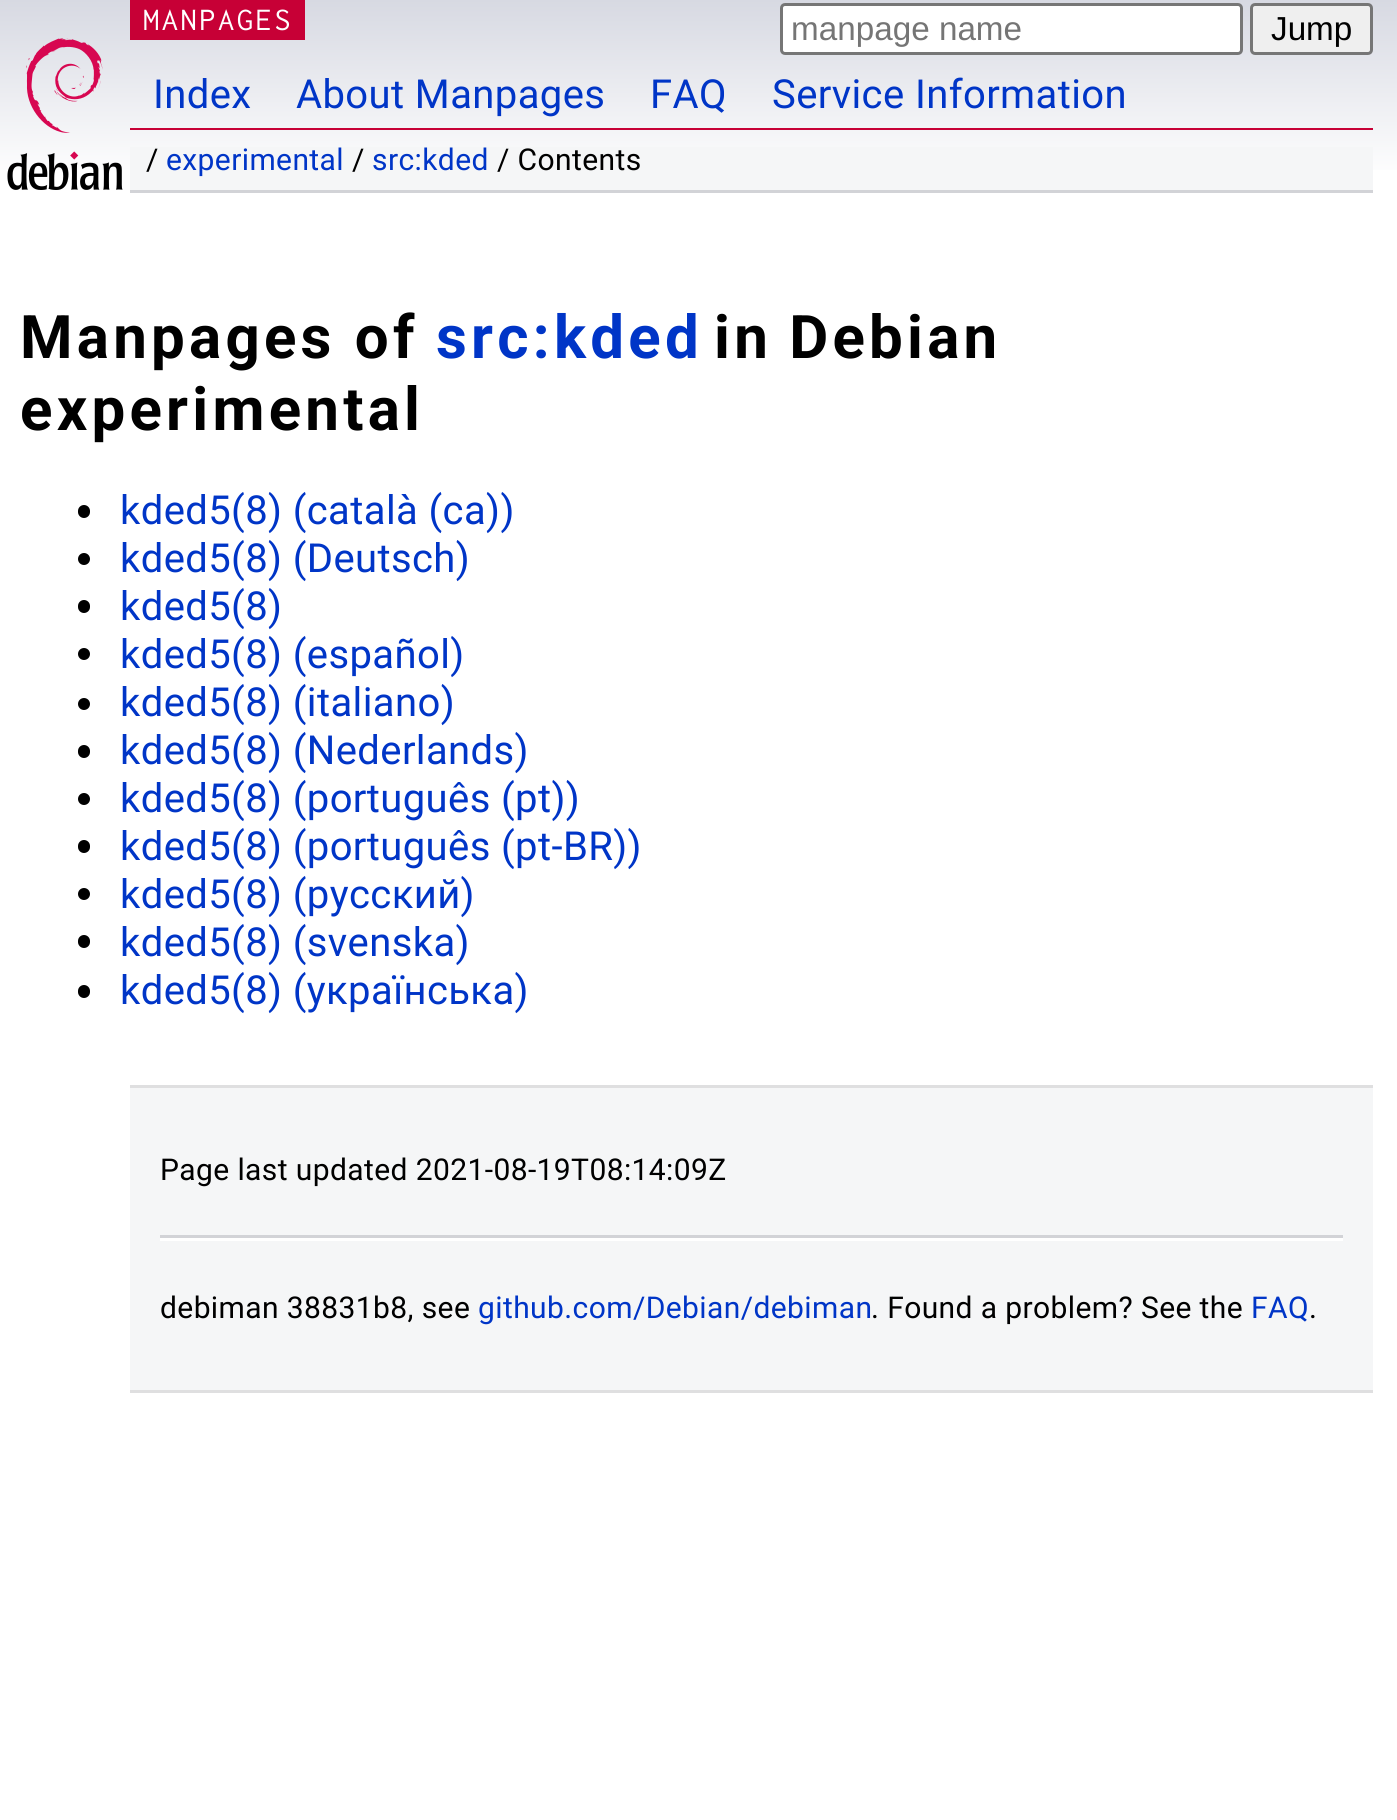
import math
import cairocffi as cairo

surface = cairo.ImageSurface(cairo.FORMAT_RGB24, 1397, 1820)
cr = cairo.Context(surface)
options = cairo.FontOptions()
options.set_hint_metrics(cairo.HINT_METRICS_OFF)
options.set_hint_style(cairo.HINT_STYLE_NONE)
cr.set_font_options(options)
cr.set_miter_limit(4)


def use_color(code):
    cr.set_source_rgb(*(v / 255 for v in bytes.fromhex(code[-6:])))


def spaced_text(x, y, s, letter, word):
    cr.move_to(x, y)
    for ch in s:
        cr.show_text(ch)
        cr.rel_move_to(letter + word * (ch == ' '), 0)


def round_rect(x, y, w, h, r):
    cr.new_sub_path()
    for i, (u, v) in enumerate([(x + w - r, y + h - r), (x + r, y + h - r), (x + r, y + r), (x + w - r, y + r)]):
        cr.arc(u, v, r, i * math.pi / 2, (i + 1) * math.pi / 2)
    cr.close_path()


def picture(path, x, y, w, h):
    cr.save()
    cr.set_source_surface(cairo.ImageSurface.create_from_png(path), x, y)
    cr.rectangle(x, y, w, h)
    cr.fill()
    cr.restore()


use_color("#ffffff")
cr.paint()
gradient = cairo.LinearGradient(699, 0, 699, 1393)
gradient.add_color_stop_rgba(0, 0.843, 0.851, 0.886, 1)
gradient.add_color_stop_rgba(0.13, 1, 1, 1, 1)
cr.set_source(gradient)
cr.rectangle(0, 0, 1397, 170)
cr.fill()
use_color("#c70036")
cr.rectangle(130, 0, 175, 40)
cr.fill()
cr.select_font_face("Inconsolata")
cr.set_font_size(32.5)
use_color("#ffffff")
spaced_text(143, 30, "MANPAGES", 2.5, 0)
round_rect(781.5, 4.5, 460, 49, 3.5)
cr.fill_preserve()
use_color("#767676")
cr.set_line_width(3)
cr.stroke()
cr.select_font_face("Liberation Sans")
cr.set_font_size(33.25)
use_color("#757575")
cr.move_to(791, 40)
cr.show_text("manpage name")
use_color("#efefef")
round_rect(1251.5, 4.5, 120, 49, 3.5)
cr.fill_preserve()
use_color("#767676")
cr.stroke()
use_color("#000000")
cr.move_to(1271, 40)
cr.show_text("Jump")
picture("img1.png", 7, 38, 116, 152)
use_color("#c70036")
cr.rectangle(130, 128, 1243, 2)
cr.fill()
cr.select_font_face("Roboto")
cr.set_font_size(40)
use_color("#0035c7")
spaced_text(153, 108, "Index", 0.4, 0)
spaced_text(296, 108, "About Manpages", 0.4, 0)
spaced_text(650, 108, "FAQ", 0.4, 0)
spaced_text(772, 108, "Service Information", 0.4, 0)
use_color("#f5f6f7")
cr.rectangle(130, 147, 1243, 43)
cr.fill()
use_color("#d2d3d7")
cr.rectangle(130, 190, 1243, 3)
cr.fill()
cr.set_font_size(30)
use_color("#000000")
spaced_text(146, 170, "/", 0.4, 0)
use_color("#0035c7")
spaced_text(166, 170, "experimental", 0.4, 0)
use_color("#000000")
spaced_text(352, 170, "/", 0.4, 0)
use_color("#0035c7")
spaced_text(372, 170, "src:kded", 0.4, 0)
use_color("#000000")
spaced_text(497, 170, "/ Contents", 0.4, 0)
cr.select_font_face("Roboto", cairo.FONT_SLANT_NORMAL, cairo.FONT_WEIGHT_BOLD)
cr.set_font_size(60)
spaced_text(20, 358, "Manpages of", 4.25, 0)
use_color("#0035c7")
spaced_text(436, 358, "src:kded", 4.25, 0)
use_color("#000000")
spaced_text(714, 358, "in Debian", 4.25, -2)
spaced_text(20, 430, "experimental", 4.25, 0)
round_rect(78, 505, 12, 13, 6)
cr.fill()
cr.select_font_face("Roboto")
cr.set_font_size(40)
use_color("#0035c7")
spaced_text(120, 524, "kded5(8) (català (ca))", 0.4, 0)
use_color("#000000")
cr.new_path()
cr.arc(84, 559, 6, 0, 2 * math.pi)
cr.fill()
use_color("#0035c7")
spaced_text(120, 572, "kded5(8) (Deutsch)", 0.4, 0)
use_color("#000000")
round_rect(78, 600, 12, 13, 6)
cr.fill()
use_color("#0035c7")
spaced_text(120, 620, "kded5(8)", 0.4, 0)
use_color("#000000")
cr.new_path()
cr.arc(84, 654, 6, 0, 2 * math.pi)
cr.fill()
use_color("#0035c7")
spaced_text(120, 668, "kded5(8) (español)", 0.4, 0)
use_color("#000000")
cr.new_path()
cr.arc(84, 704, 6, 0, 2 * math.pi)
cr.fill()
use_color("#0035c7")
spaced_text(120, 716, "kded5(8) (italiano)", 0.4, 0)
use_color("#000000")
round_rect(78, 745, 12, 13, 6)
cr.fill()
use_color("#0035c7")
spaced_text(120, 764, "kded5(8) (Nederlands)", 0.4, 0)
use_color("#000000")
cr.new_path()
cr.arc(84, 799, 6, 0, 2 * math.pi)
cr.fill()
use_color("#0035c7")
spaced_text(120, 812, "kded5(8) (português (pt))", 0.4, 0)
use_color("#000000")
round_rect(78, 840, 12, 13, 6)
cr.fill()
use_color("#0035c7")
spaced_text(120, 860, "kded5(8) (português (pt-BR))", 0.4, 0)
use_color("#000000")
cr.new_path()
cr.arc(84, 894, 6, 0, 2 * math.pi)
cr.fill()
use_color("#0035c7")
spaced_text(120, 908, "kded5(8) (русский)", 0.4, 0)
use_color("#000000")
round_rect(78, 935, 12, 13, 6)
cr.fill()
use_color("#0035c7")
spaced_text(120, 956, "kded5(8) (svenska)", 0.4, 0)
use_color("#000000")
round_rect(78, 985, 12, 13, 6)
cr.fill()
use_color("#0035c7")
spaced_text(120, 1004, "kded5(8) (українська)", 0.4, 0)
use_color("#f5f6f7")
cr.rectangle(130, 1088, 1243, 302)
cr.fill()
use_color("#dfdfe0")
cr.rectangle(130, 1085, 1243, 3)
cr.fill()
cr.rectangle(130, 1390, 1243, 3)
cr.fill()
cr.set_font_size(30)
use_color("#000000")
spaced_text(160, 1180, "Page last updated 2021-08-19T08:14:09Z", 0.4, 0)
use_color("#d2d3d7")
cr.rectangle(160, 1235, 1183, 3)
cr.fill()
use_color("#ffffff")
cr.rectangle(160, 1238, 1183, 3)
cr.fill()
use_color("#000000")
spaced_text(160, 1318, "debiman 38831b8, see", 0.4, 0)
use_color("#0035c7")
spaced_text(478, 1318, "github.com/Debian/debiman", 0.4, 0)
use_color("#000000")
spaced_text(871, 1318, ". Found a problem? See the", 0.4, 0)
use_color("#0035c7")
spaced_text(1251, 1318, "FAQ", 0.4, 0)
use_color("#000000")
spaced_text(1309, 1318, ".", 0.4, 0)
surface.write_to_png("result.png")
